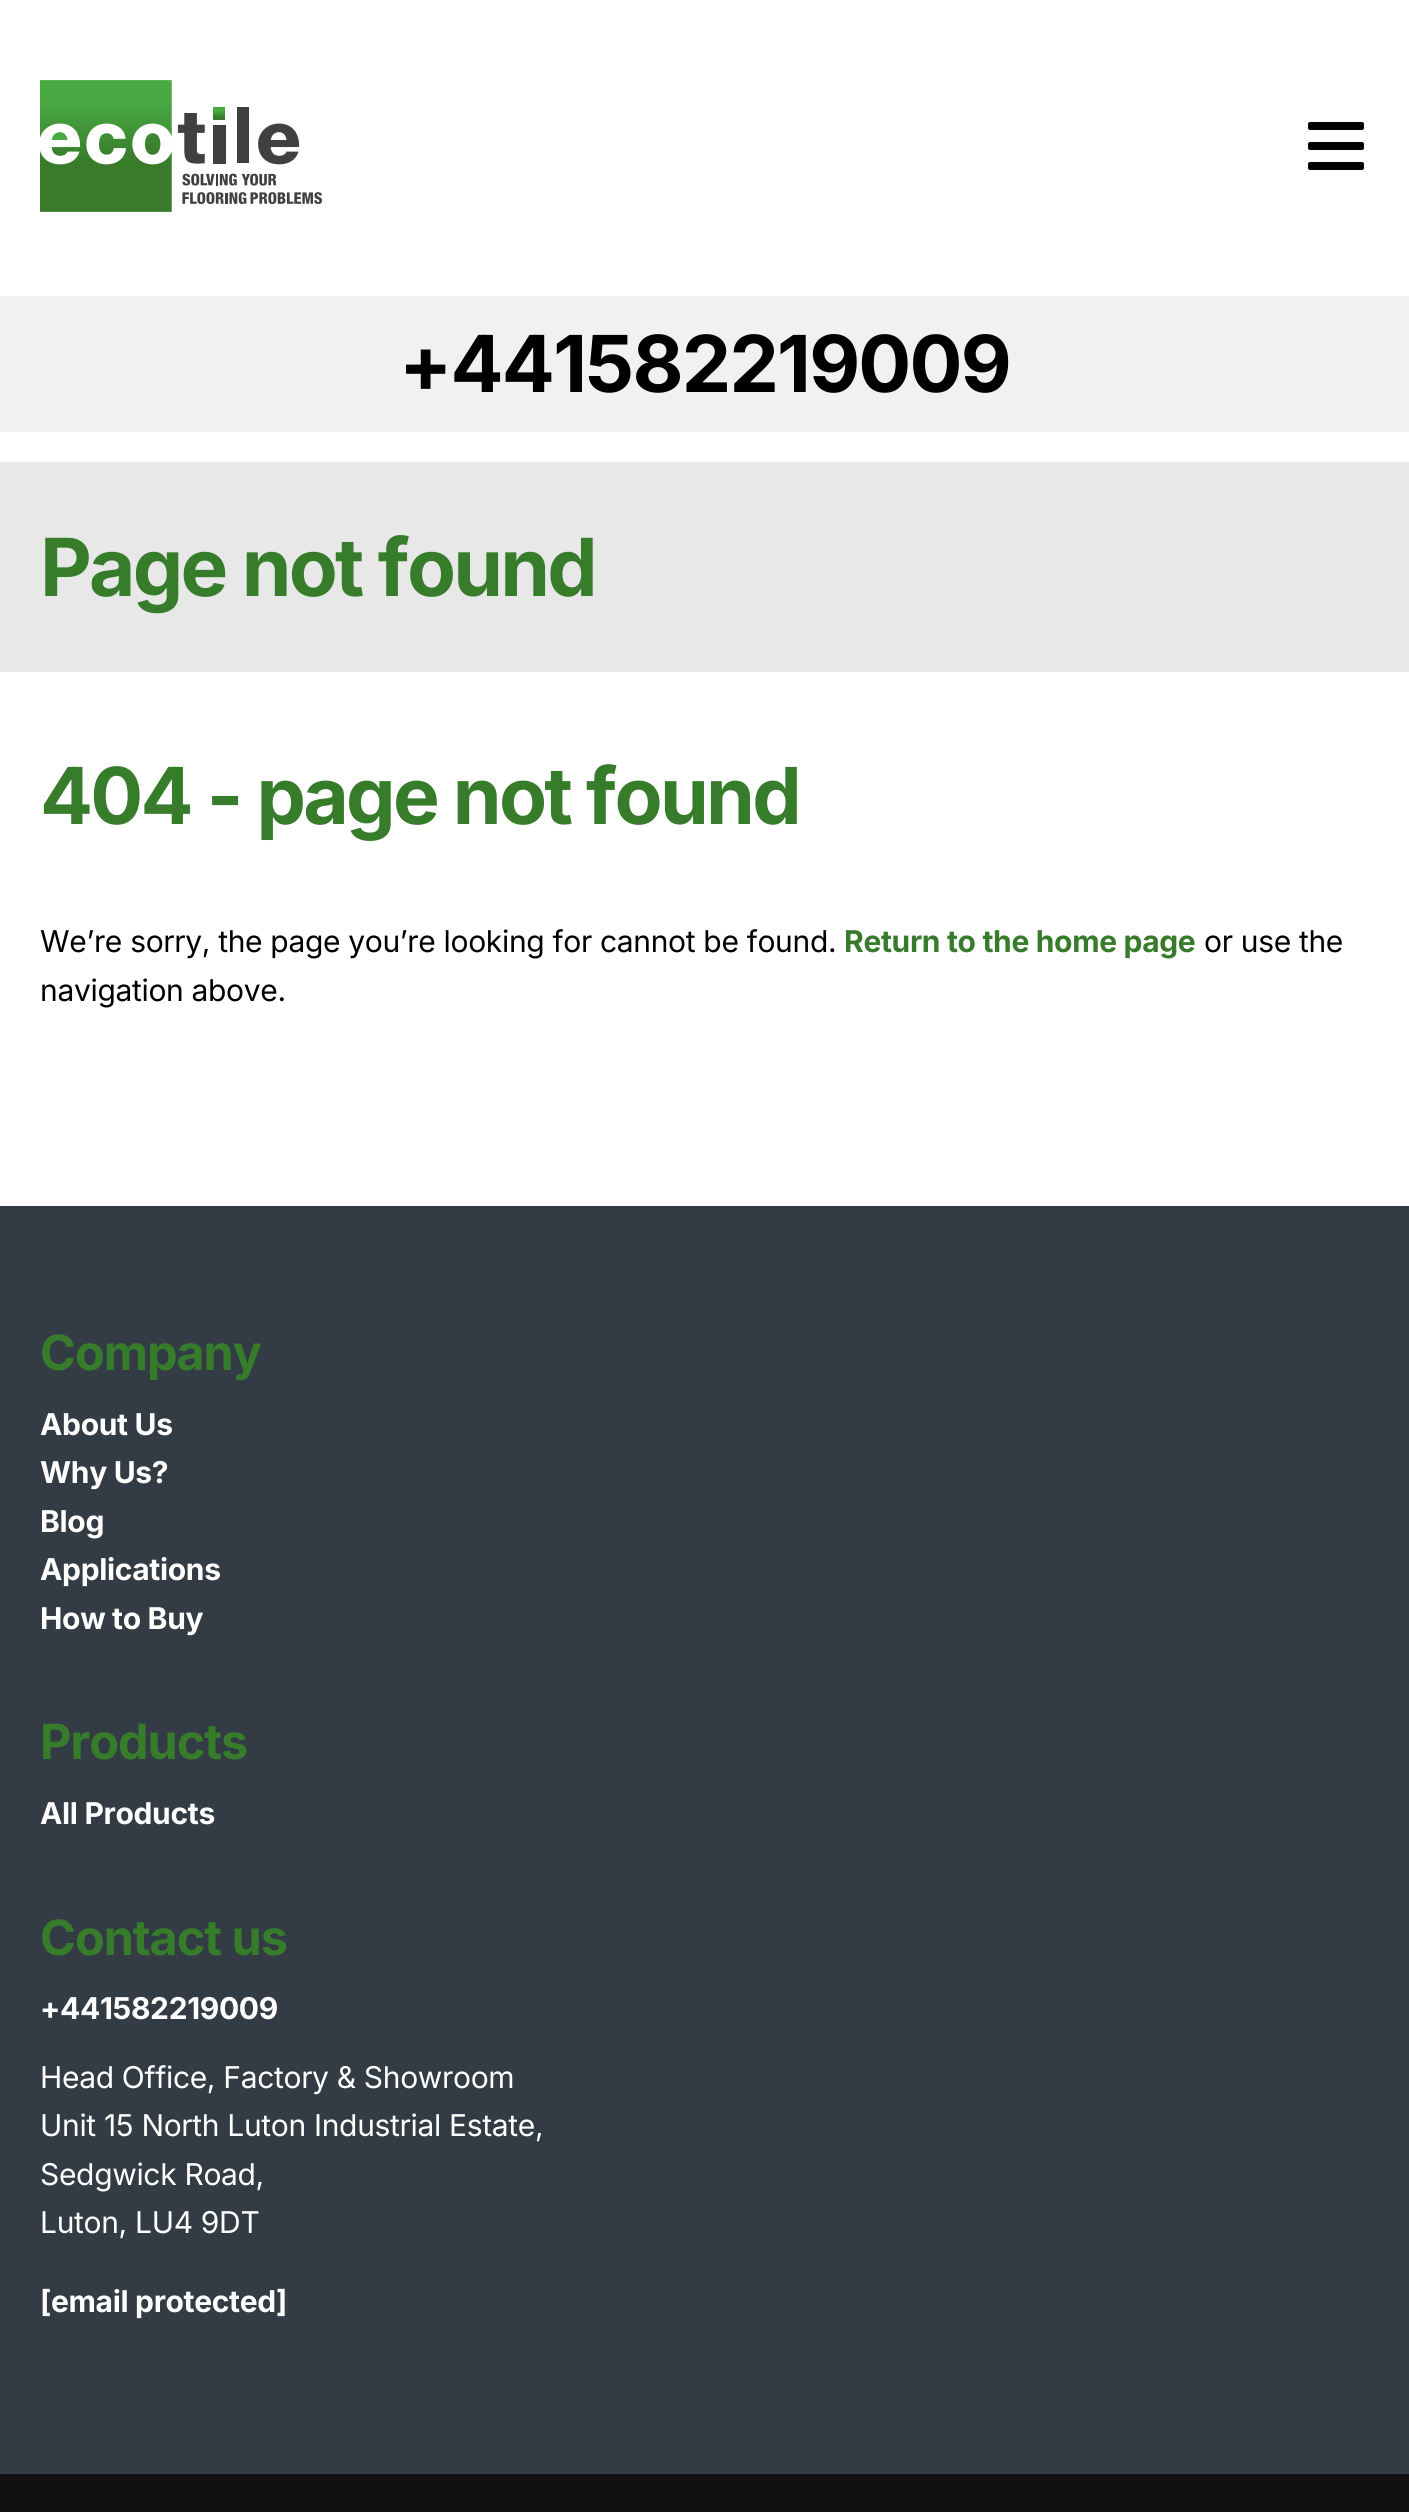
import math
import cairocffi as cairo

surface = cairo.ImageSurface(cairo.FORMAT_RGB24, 1409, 2512)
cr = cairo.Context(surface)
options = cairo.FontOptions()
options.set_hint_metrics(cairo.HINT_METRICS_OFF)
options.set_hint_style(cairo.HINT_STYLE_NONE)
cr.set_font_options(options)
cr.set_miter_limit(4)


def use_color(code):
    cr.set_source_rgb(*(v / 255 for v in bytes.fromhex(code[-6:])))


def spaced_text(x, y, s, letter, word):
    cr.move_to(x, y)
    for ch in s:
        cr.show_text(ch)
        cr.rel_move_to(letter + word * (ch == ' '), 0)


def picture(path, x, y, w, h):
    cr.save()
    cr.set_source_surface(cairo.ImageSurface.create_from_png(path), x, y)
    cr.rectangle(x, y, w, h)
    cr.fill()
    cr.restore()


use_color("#ffffff")
cr.paint()
picture("img1.png", 40, 80, 282, 132)
picture("img2.png", 1308, 122, 56, 48)
use_color("#f1f1f1")
cr.rectangle(0, 296, 1409, 136)
cr.fill()
cr.select_font_face("Inter", cairo.FONT_SLANT_NORMAL, cairo.FONT_WEIGHT_BOLD)
cr.set_font_size(78.5)
use_color("#000000")
spaced_text(399, 392, "+441582219009", -1.75, 0)
use_color("#e9e8e8")
cr.rectangle(0, 462, 1409, 210)
cr.fill()
cr.set_font_size(80)
use_color("#367c2b")
spaced_text(40, 596, "Page not found", -2.75, 0)
cr.set_font_size(78.5)
spaced_text(40, 824, "404 - page not found", -2.75, 0)
cr.select_font_face("Inter")
cr.set_font_size(30)
use_color("#000000")
spaced_text(40, 952, "We’re sorry, the page you’re looking for cannot be found.", -0.33, 0)
cr.select_font_face("Inter", cairo.FONT_SLANT_NORMAL, cairo.FONT_WEIGHT_BOLD)
use_color("#367c2b")
spaced_text(844, 952, "Return to the home page", -0.33, 0)
cr.select_font_face("Inter")
use_color("#000000")
spaced_text(1204, 952, "or use the", -0.33, 0)
spaced_text(40, 1001, "navigation above.", -0.33, 0)
use_color("#333c44")
cr.rectangle(0, 1206, 1409, 1268)
cr.fill()
cr.select_font_face("Inter", cairo.FONT_SLANT_NORMAL, cairo.FONT_WEIGHT_BOLD)
cr.set_font_size(48.5)
use_color("#367c2b")
spaced_text(40, 1370, "Company", -1, 0)
cr.set_font_size(30)
use_color("#ffffff")
spaced_text(40, 1435, "About Us", -0.33, 0)
spaced_text(40, 1483, "Why Us?", -0.33, 0)
spaced_text(40, 1532, "Blog", -0.33, 0)
spaced_text(40, 1580, "Applications", -0.33, 0)
spaced_text(40, 1629, "How to Buy", -0.33, 0)
cr.set_font_size(48.5)
use_color("#367c2b")
spaced_text(40, 1759, "Products", -1, 0)
cr.set_font_size(30)
use_color("#ffffff")
spaced_text(40, 1824, "All Products", -0.33, 0)
cr.set_font_size(48.5)
use_color("#367c2b")
spaced_text(40, 1955, "Contact us", -1, 0)
cr.set_font_size(30)
use_color("#ffffff")
spaced_text(40, 2019, "+441582219009", -0.33, 0)
cr.select_font_face("Inter")
spaced_text(40, 2088, "Head Office, Factory & Showroom", -0.33, 0)
spaced_text(40, 2136, "Unit 15 North Luton Industrial Estate,", -0.33, 0)
spaced_text(40, 2185, "Sedgwick Road,", -0.33, 0)
spaced_text(40, 2233, "Luton, LU4 9DT", -0.33, 0)
cr.select_font_face("Inter", cairo.FONT_SLANT_NORMAL, cairo.FONT_WEIGHT_BOLD)
spaced_text(40, 2312, "[email protected]", -0.33, 0)
use_color("#111111")
cr.rectangle(0, 2474, 1409, 38)
cr.fill()
surface.write_to_png("result.png")
